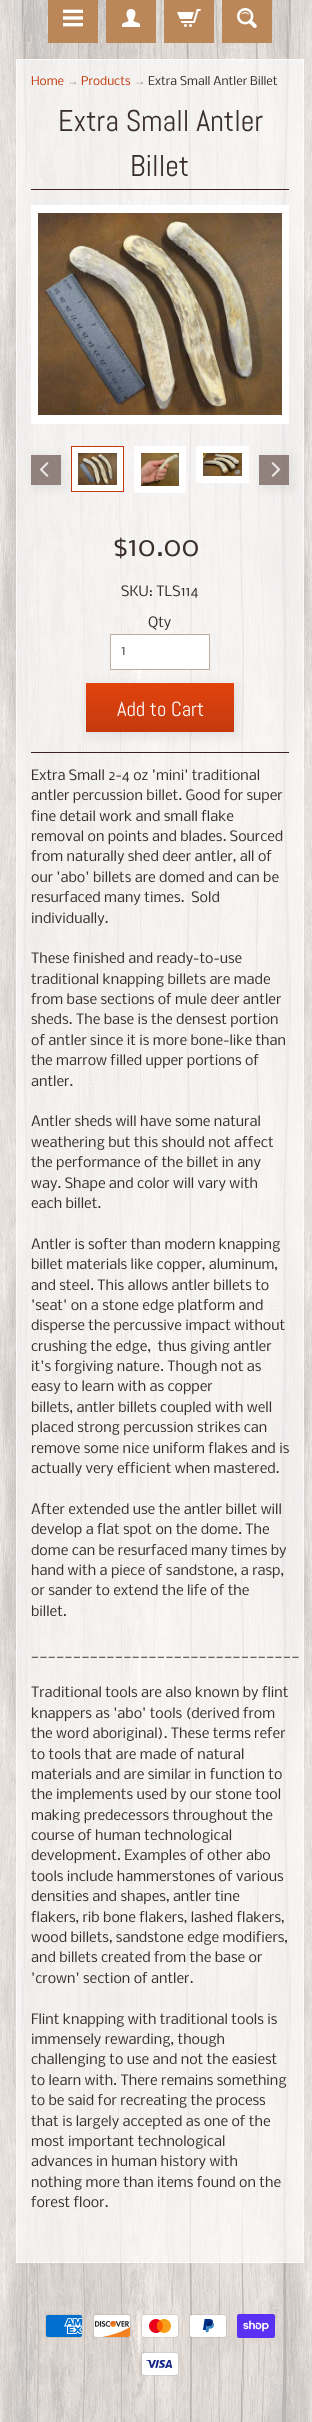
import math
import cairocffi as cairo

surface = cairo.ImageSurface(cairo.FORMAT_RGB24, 312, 2422)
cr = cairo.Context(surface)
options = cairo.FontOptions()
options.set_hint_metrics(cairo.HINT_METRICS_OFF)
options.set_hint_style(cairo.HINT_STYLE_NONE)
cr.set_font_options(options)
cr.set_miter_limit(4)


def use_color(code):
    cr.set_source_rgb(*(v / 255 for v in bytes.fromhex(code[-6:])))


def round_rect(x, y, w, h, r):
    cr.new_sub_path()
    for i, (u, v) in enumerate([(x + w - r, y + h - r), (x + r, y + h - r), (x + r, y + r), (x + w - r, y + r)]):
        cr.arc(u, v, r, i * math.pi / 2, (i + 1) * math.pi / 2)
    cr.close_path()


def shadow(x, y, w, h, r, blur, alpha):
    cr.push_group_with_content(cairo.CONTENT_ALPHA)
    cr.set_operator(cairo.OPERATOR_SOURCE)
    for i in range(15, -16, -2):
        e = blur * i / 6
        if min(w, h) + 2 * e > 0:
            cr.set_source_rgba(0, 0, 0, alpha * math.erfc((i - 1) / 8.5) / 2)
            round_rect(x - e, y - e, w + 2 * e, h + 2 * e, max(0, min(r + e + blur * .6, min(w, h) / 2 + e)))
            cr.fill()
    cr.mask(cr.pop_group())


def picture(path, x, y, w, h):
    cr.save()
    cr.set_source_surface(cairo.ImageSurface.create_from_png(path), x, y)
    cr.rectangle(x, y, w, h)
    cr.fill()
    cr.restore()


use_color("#ffffff")
cr.paint()
picture("img1.png", 0, 0, 312, 2422)
use_color("#bb8759")
cr.rectangle(48, 0, 50, 43)
cr.fill()
picture("img2.png", 63, 9, 20, 18)
cr.rectangle(106, 0, 50, 43)
cr.fill()
picture("img3.png", 122, 9, 18, 18)
cr.rectangle(164, 0, 50, 43)
cr.fill()
picture("img4.png", 177, 9, 24, 18)
cr.rectangle(222, 0, 50, 43)
cr.fill()
picture("img5.png", 237, 8, 20, 20)
cr.set_source_rgba(1, 1, 1, 0.7)
cr.rectangle(16, 59, 288, 2204)
cr.fill()
cr.rectangle(16.5, 59.5, 287, 2203)
cr.set_line_width(1)
cr.stroke()
cr.select_font_face("Nobile")
cr.set_font_size(11.5)
use_color("#c33a0e")
cr.move_to(31, 85)
cr.show_text("Home")
cr.select_font_face("Liberation Sans")
use_color("#97908d")
cr.move_to(67, 85)
cr.show_text("→")
cr.select_font_face("Nobile")
use_color("#c33a0e")
cr.move_to(81, 85)
cr.show_text("Products")
cr.select_font_face("Liberation Sans")
use_color("#97908d")
cr.move_to(134, 85)
cr.show_text("→")
cr.select_font_face("Nobile")
use_color("#392e2a")
cr.move_to(148, 85)
cr.show_text("Extra Small Antler Billet")
use_color("#3e1f1f")
cr.rectangle(31, 189, 258, 1)
cr.fill()
cr.select_font_face("Abel")
cr.set_font_size(30)
use_color("#392e2a")
cr.move_to(58, 131)
cr.show_text("Extra Small Antler")
cr.move_to(130, 176)
cr.show_text("Billet")
use_color("#ffffff")
cr.rectangle(31, 205, 258, 219)
cr.fill()
picture("img6.png", 38, 213, 244, 202)
cr.rectangle(71.5, 446.5, 52, 45)
cr.fill_preserve()
use_color("#c33a0e")
cr.stroke()
picture("img8.png", 78, 453, 39, 32)
cr.save()
cr.set_fill_rule(cairo.FILL_RULE_EVEN_ODD)
cr.new_path()
cr.move_to(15, 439)
cr.line_to(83, 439)
cr.line_to(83, 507)
cr.line_to(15, 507)
cr.close_path()
cr.move_to(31, 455)
cr.line_to(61, 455)
cr.line_to(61, 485)
cr.line_to(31, 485)
cr.close_path()
cr.clip()
use_color("#000000")
shadow(34, 458, 30, 30, 0, 6, 0.08)
cr.restore()
cr.set_source_rgba(0.471, 0.4, 0.376, 0.8)
cr.rectangle(31, 455, 30, 30)
cr.fill()
picture("img7.png", 39, 462, 10, 15)
use_color("#ffffff")
cr.rectangle(134, 446, 52, 47)
cr.fill()
picture("img9.png", 141, 453, 38, 33)
cr.rectangle(196, 446, 53, 37)
cr.fill()
picture("img10.png", 203, 453, 39, 23)
cr.save()
cr.set_fill_rule(cairo.FILL_RULE_EVEN_ODD)
cr.new_path()
cr.move_to(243, 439)
cr.line_to(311, 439)
cr.line_to(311, 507)
cr.line_to(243, 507)
cr.close_path()
cr.move_to(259, 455)
cr.line_to(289, 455)
cr.line_to(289, 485)
cr.line_to(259, 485)
cr.close_path()
cr.clip()
use_color("#000000")
shadow(262, 458, 30, 30, 0, 6, 0.08)
cr.restore()
cr.set_source_rgba(0.471, 0.4, 0.376, 0.8)
cr.rectangle(259, 455, 30, 30)
cr.fill()
picture("img11.png", 271, 462, 10, 15)
cr.select_font_face("Nobile")
cr.set_font_size(27)
use_color("#392e2a")
cr.move_to(113, 556)
cr.show_text("$10.00")
cr.set_font_size(13.6)
cr.move_to(121, 596)
cr.show_text("SKU: TLS114")
cr.move_to(148, 627)
cr.show_text("Qty")
use_color("#ffffff")
cr.rectangle(110.5, 634.5, 99, 35)
cr.fill_preserve()
use_color("#bdaf9b")
cr.stroke()
use_color("#555555")
cr.move_to(121, 655)
cr.show_text("1")
use_color("#3e1f1f")
cr.rectangle(31, 752, 258, 1)
cr.fill()
use_color("#000000")
shadow(89, 686, 148, 49, 0, 6, 0.1)
gradient = cairo.LinearGradient(160, 683, 160, 732)
gradient.add_color_stop_rgba(0, 0.89, 0.263, 0.051, 1)
gradient.add_color_stop_rgba(1, 0.765, 0.227, 0.055, 1)
cr.set_source(gradient)
cr.rectangle(86, 683, 148, 49)
cr.fill()
cr.select_font_face("Abel")
cr.set_font_size(20.5)
use_color("#ffffff")
cr.move_to(117, 716)
cr.show_text("Add to Cart")
cr.select_font_face("Nobile")
cr.set_font_size(13.6)
use_color("#392e2a")
cr.move_to(31, 780)
cr.show_text("Extra Small 2-4 oz 'mini' traditional")
cr.move_to(31, 800)
cr.show_text("antler percussion billet. Good for super")
cr.move_to(31, 821)
cr.show_text("fine detail work and small flake")
cr.move_to(31, 841)
cr.show_text("removal on points and blades. Sourced")
cr.move_to(31, 861)
cr.show_text("from naturally shed deer antler, all of")
cr.move_to(31, 882)
cr.show_text("our 'abo' billets are domed and can be")
cr.move_to(31, 902)
cr.show_text("resurfaced many times.  Sold")
cr.move_to(31, 923)
cr.show_text("individually.")
cr.move_to(31, 963)
cr.show_text("These finished and ready-to-use")
cr.move_to(31, 984)
cr.show_text("traditional knapping billets are made")
cr.move_to(31, 1004)
cr.show_text("from base sections of mule deer antler")
cr.move_to(31, 1024)
cr.show_text("sheds. The base is the densest portion")
cr.move_to(31, 1045)
cr.show_text("of antler since it is more bone-like than")
cr.move_to(31, 1065)
cr.show_text("the marrow filled upper portions of")
cr.move_to(31, 1086)
cr.show_text("antler.")
cr.move_to(31, 1126)
cr.show_text("Antler sheds will have some natural")
cr.move_to(31, 1147)
cr.show_text("weathering but this should not affect")
cr.move_to(31, 1167)
cr.show_text("the performance of the billet in any")
cr.move_to(31, 1188)
cr.show_text("way. Shape and color will vary with")
cr.move_to(31, 1208)
cr.show_text("each billet.")
cr.move_to(31, 1249)
cr.show_text("Antler is softer than modern knapping")
cr.move_to(31, 1269)
cr.show_text("billet materials like copper, aluminum,")
cr.move_to(31, 1290)
cr.show_text("and steel. This allows antler billets to")
cr.move_to(31, 1310)
cr.show_text("'seat' on a stone edge platform and")
cr.move_to(31, 1330)
cr.show_text("disperse the percussive impact without")
cr.move_to(31, 1351)
cr.show_text("crushing the edge,  thus giving antler")
cr.move_to(31, 1371)
cr.show_text("it's forgiving nature. Though not as")
cr.move_to(31, 1391)
cr.show_text("easy to learn with as copper")
cr.move_to(31, 1412)
cr.show_text("billets, antler billets coupled with well")
cr.move_to(31, 1432)
cr.show_text("placed strong percussion strikes can")
cr.move_to(31, 1453)
cr.show_text("remove some nice uniform flakes and is")
cr.move_to(31, 1473)
cr.show_text("actually very efficient when mastered.")
cr.move_to(31, 1514)
cr.show_text("After extended use the antler billet will")
cr.move_to(31, 1534)
cr.show_text("develop a flat spot on the dome. The")
cr.move_to(31, 1555)
cr.show_text("dome can be resurfaced many times by")
cr.move_to(31, 1575)
cr.show_text("hand with a piece of sandstone, a rasp,")
cr.move_to(31, 1595)
cr.show_text("or sander to extend the life of the")
cr.move_to(31, 1616)
cr.show_text("billet.")
cr.move_to(31, 1657)
cr.show_text("________________________________")
cr.move_to(31, 1697)
cr.show_text("Traditional tools are also known by flint")
cr.move_to(31, 1718)
cr.show_text("knappers as 'abo' tools (derived from")
cr.move_to(31, 1738)
cr.show_text("the word aboriginal). These terms refer")
cr.move_to(31, 1759)
cr.show_text("to tools that are made of natural")
cr.move_to(31, 1779)
cr.show_text("materials and are similar in function to")
cr.move_to(31, 1799)
cr.show_text("the implements used by our stone tool")
cr.move_to(31, 1820)
cr.show_text("making predecessors throughout the")
cr.move_to(31, 1840)
cr.show_text("course of human technological")
cr.move_to(31, 1860)
cr.show_text("development. Examples of other abo")
cr.move_to(31, 1881)
cr.show_text("tools include hammerstones of various")
cr.move_to(31, 1901)
cr.show_text("densities and shapes, antler tine")
cr.move_to(31, 1922)
cr.show_text("flakers, rib bone flakers, lashed flakers,")
cr.move_to(31, 1942)
cr.show_text("wood billets, sandstone edge modifiers,")
cr.move_to(31, 1962)
cr.show_text("and billets created from the base or")
cr.move_to(31, 1983)
cr.show_text("'crown' section of antler.")
cr.move_to(31, 2024)
cr.show_text("Flint knapping with traditional tools is")
cr.move_to(31, 2044)
cr.show_text("immensely rewarding, though")
cr.move_to(31, 2064)
cr.show_text("challenging to use and not the easiest")
cr.move_to(31, 2085)
cr.show_text("to learn with. There remains something")
cr.move_to(31, 2105)
cr.show_text("to be said for recreating the process")
cr.move_to(31, 2126)
cr.show_text("that is largely accepted as one of the")
cr.move_to(31, 2146)
cr.show_text("most important technological")
cr.move_to(31, 2166)
cr.show_text("advances in human history with")
cr.move_to(31, 2187)
cr.show_text("nothing more than items found on the")
cr.move_to(31, 2207)
cr.show_text("forest floor.")
picture("img12.png", 45, 2314, 38, 24)
picture("img13.png", 93, 2314, 38, 24)
picture("img14.png", 141, 2314, 38, 24)
picture("img15.png", 189, 2314, 38, 24)
picture("img16.png", 237, 2314, 38, 24)
picture("img17.png", 141, 2352, 38, 24)
surface.write_to_png("result.png")
